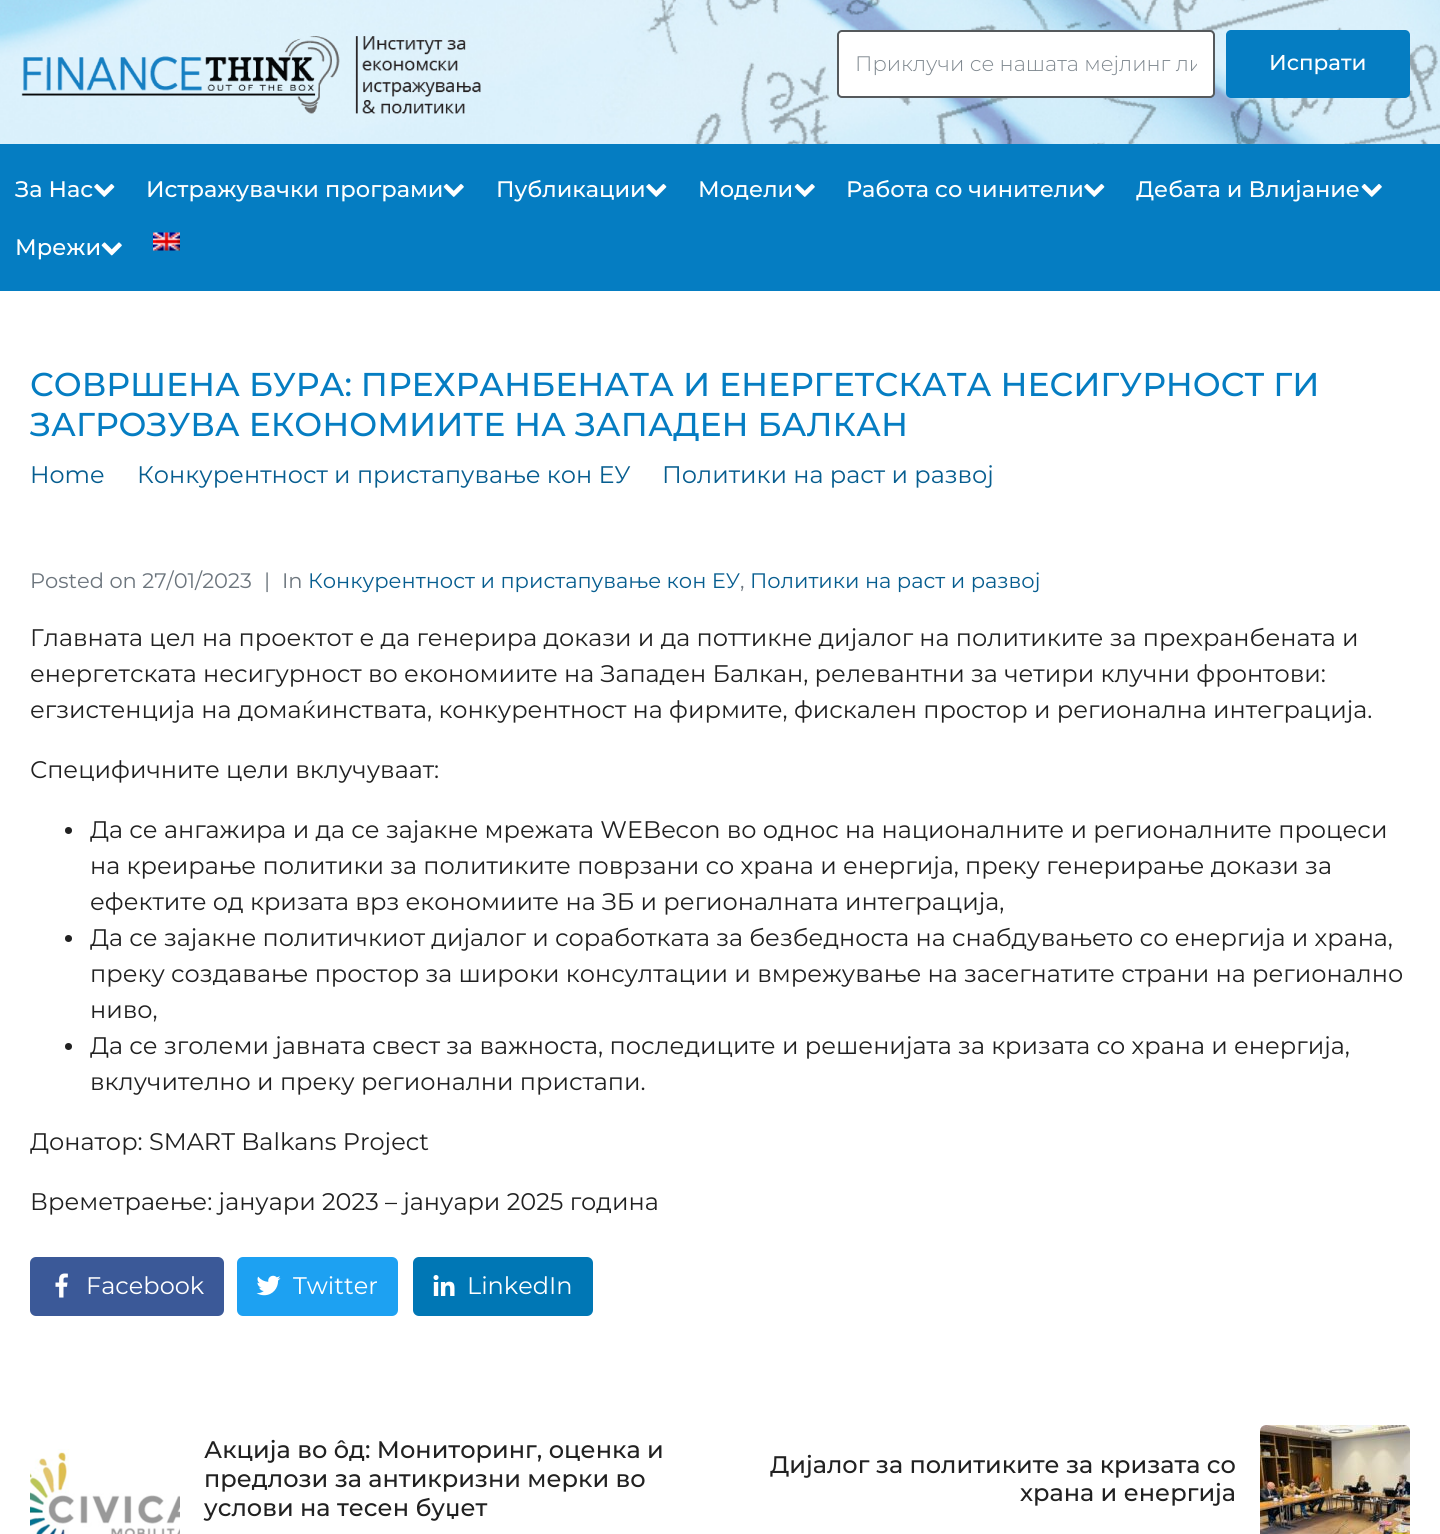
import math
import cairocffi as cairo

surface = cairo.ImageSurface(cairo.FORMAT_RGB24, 1440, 1534)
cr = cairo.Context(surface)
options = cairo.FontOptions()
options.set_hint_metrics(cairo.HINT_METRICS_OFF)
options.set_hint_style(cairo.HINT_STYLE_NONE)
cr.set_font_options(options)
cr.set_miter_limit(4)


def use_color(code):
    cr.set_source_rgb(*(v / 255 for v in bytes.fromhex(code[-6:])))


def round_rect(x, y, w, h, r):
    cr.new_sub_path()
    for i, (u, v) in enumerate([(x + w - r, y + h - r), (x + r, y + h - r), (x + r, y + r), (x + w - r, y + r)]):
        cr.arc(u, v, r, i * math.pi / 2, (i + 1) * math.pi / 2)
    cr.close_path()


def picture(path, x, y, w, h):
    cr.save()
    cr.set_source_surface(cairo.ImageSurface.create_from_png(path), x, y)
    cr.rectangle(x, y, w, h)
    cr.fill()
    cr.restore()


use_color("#ffffff")
cr.paint()
picture("img1.png", 0, 0, 1440, 144)
picture("img2.png", 21, 36, 460, 78)
use_color("#ffffff")
round_rect(838, 31, 376, 66, 4)
cr.fill_preserve()
use_color("#55595c")
cr.stroke()
cr.save()
cr.rectangle(855, 51, 342, 27)
cr.clip()
cr.select_font_face("Montserrat Light")
cr.set_font_size(21)
use_color("#818a91")
cr.move_to(855, 71)
cr.show_text("Приклучи се нашата мејлинг ли")
cr.restore()
use_color("#057dc2")
round_rect(1227, 31, 182, 66, 4)
cr.fill_preserve()
cr.stroke()
cr.select_font_face("Montserrat Medium")
cr.set_font_size(21.5)
use_color("#ffffff")
cr.move_to(1269, 70)
cr.show_text("Испрати")
use_color("#057dc2")
cr.rectangle(0, 144, 1440, 147)
cr.fill()
cr.set_font_size(22.5)
use_color("#ffffff")
cr.move_to(15, 197)
cr.show_text("За Нас")
picture("img3.png", 94, 184, 21, 13)
cr.move_to(146, 197)
cr.show_text("Истражувачки програми")
picture("img4.png", 443, 184, 21, 13)
cr.move_to(496, 197)
cr.show_text("Публикации")
picture("img3.png", 646, 184, 21, 13)
cr.move_to(698, 197)
cr.show_text("Модели")
picture("img4.png", 794, 184, 21, 13)
cr.move_to(846, 197)
cr.show_text("Работа со чинители")
picture("img3.png", 1084, 184, 21, 13)
cr.move_to(1136, 197)
cr.show_text("Дебата и Влијание")
picture("img4.png", 1361, 184, 21, 13)
cr.move_to(15, 255)
cr.show_text("Мрежи")
picture("img5.png", 101, 242, 21, 14)
picture("img6.png", 153, 232, 27, 19)
cr.set_font_size(33)
use_color("#057dc2")
cr.move_to(30, 396)
cr.show_text("СОВРШЕНА БУРА: ПРЕХРАНБЕНАТА И ЕНЕРГЕТСКАТА НЕСИГУРНОСТ ГИ")
cr.move_to(30, 436)
cr.show_text("ЗАГРОЗУВА ЕКОНОМИИТЕ НА ЗАПАДЕН БАЛКАН")
cr.select_font_face("Montserrat")
cr.set_font_size(24)
use_color("#065d8f")
cr.move_to(30, 483)
cr.show_text("Home")
cr.move_to(137, 483)
cr.show_text("Конкурентност и пристапување кон ЕУ")
cr.move_to(662, 483)
cr.show_text("Политики на раст и развој")
cr.set_font_size(21)
use_color("#6c757d")
cr.move_to(30, 588)
cr.show_text("Posted on 27/01/2023")
cr.move_to(264, 588)
cr.show_text("|")
cr.move_to(282, 588)
cr.show_text("In")
use_color("#065d8f")
cr.move_to(308, 588)
cr.show_text("Конкурентност и пристапување кон ЕУ")
use_color("#6c757d")
cr.move_to(740, 588)
cr.show_text(",")
use_color("#065d8f")
cr.move_to(750, 588)
cr.show_text("Политики на раст и развој")
cr.set_font_size(24)
use_color("#212121")
cr.move_to(30, 646)
cr.show_text("Главната цел на проектот е да генерира докази и да поттикне дијалог на политиките за прехранбената и")
cr.move_to(30, 682)
cr.show_text("енергетската несигурност во економиите на Западен Балкан, релевантни за четири клучни фронтови:")
cr.move_to(30, 718)
cr.show_text("егзистенција на домаќинствата, конкурентност на фирмите, фискален простор и регионална интеграција.")
cr.move_to(30, 778)
cr.show_text("Специфичните цели вклучуваат:")
cr.new_path()
cr.arc(68.5, 830.5, 3.5, 0, 2 * math.pi)
cr.fill()
cr.move_to(90, 838)
cr.show_text("Да се ангажира и да се зајакне мрежата WEBecon во однос на националните и регионалните процеси")
cr.move_to(90, 874)
cr.show_text("на креирање политики за политиките поврзани со храна и енергија, преку генерирање докази за")
cr.move_to(90, 910)
cr.show_text("ефектите од кризата врз економиите на ЗБ и регионалната интеграција,")
cr.new_path()
cr.arc(68.5, 938.5, 3.5, 0, 2 * math.pi)
cr.fill()
cr.move_to(90, 946)
cr.show_text("Да се зајакне политичкиот дијалог и соработката за безбедноста на снабдувањето со енергија и храна,")
cr.move_to(90, 982)
cr.show_text("преку создавање простор за широки консултации и вмрежување на засегнатите страни на регионално")
cr.move_to(90, 1018)
cr.show_text("ниво,")
cr.new_path()
cr.arc(68.5, 1046.5, 3.5, 0, 2 * math.pi)
cr.fill()
cr.move_to(90, 1054)
cr.show_text("Да се зголеми јавната свест за важноста, последиците и решенијата за кризата со храна и енергија,")
cr.move_to(90, 1090)
cr.show_text("вклучително и преку регионални пристапи.")
cr.move_to(30, 1150)
cr.show_text("Донатор: SMART Balkans Project")
cr.move_to(30, 1210)
cr.show_text("Времетраење: јануари 2023 – јануари 2025 година")
use_color("#3b5998")
round_rect(30, 1257, 194, 59, 6)
cr.fill()
picture("img7.png", 55, 1273, 13, 25)
use_color("#ffffff")
cr.move_to(86, 1294)
cr.show_text("Facebook")
use_color("#1da1f2")
round_rect(237, 1257, 161, 59, 6)
cr.fill()
picture("img8.png", 256, 1275, 25, 21)
use_color("#ffffff")
cr.move_to(293, 1294)
cr.show_text("Twitter")
use_color("#0077b5")
round_rect(413, 1257, 180, 59, 6)
cr.fill()
picture("img9.png", 433, 1275, 22, 21)
use_color("#ffffff")
cr.move_to(467, 1294)
cr.show_text("LinkedIn")
picture("img10.png", 30, 1449, 150, 85)
cr.select_font_face("Montserrat Medium")
use_color("#212121")
cr.move_to(204, 1458)
cr.show_text("Акција во ôд: Мониторинг, оценка и")
cr.move_to(204, 1487)
cr.show_text("предлози за антикризни мерки во")
cr.move_to(204, 1516)
cr.show_text("услови на тесен буџет")
cr.move_to(770, 1473)
cr.show_text("Дијалог за политиките за кризата со")
cr.move_to(1020, 1501)
cr.show_text("храна и енергија")
picture("img11.png", 1260, 1425, 150, 109)
surface.write_to_png("result.png")
